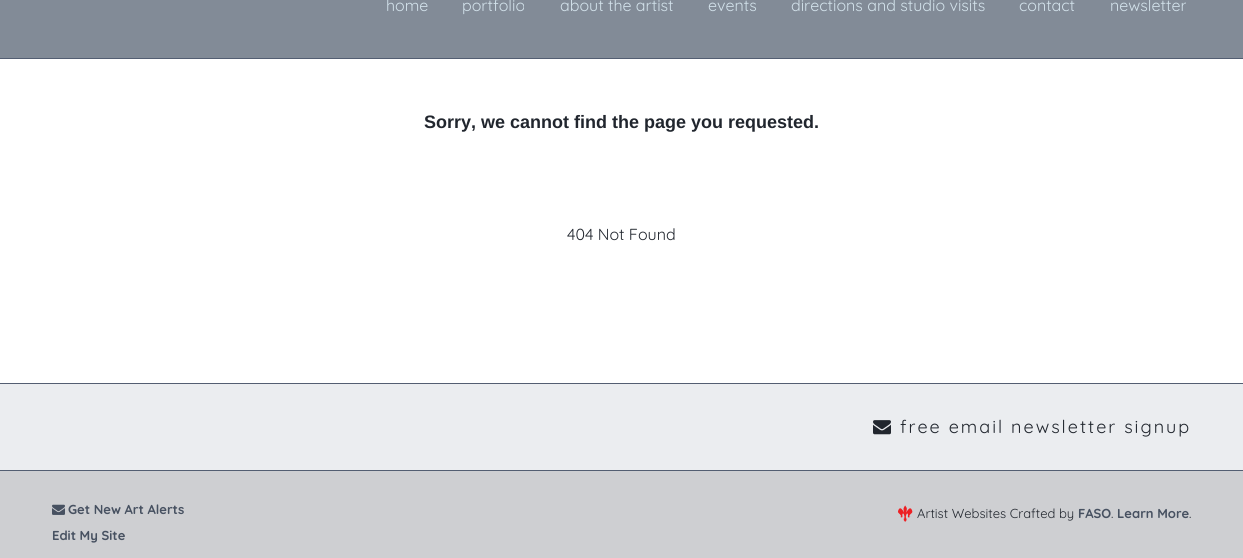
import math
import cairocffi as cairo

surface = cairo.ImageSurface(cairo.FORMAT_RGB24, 1243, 558)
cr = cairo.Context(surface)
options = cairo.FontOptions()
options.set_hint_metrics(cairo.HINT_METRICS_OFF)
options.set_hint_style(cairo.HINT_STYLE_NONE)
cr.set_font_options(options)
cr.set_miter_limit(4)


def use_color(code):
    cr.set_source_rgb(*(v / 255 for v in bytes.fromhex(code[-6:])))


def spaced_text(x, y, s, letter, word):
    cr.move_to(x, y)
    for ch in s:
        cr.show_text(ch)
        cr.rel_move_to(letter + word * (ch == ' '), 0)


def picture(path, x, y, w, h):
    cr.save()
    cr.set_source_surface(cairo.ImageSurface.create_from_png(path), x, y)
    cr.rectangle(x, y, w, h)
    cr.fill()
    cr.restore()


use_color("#ffffff")
cr.paint()
use_color("#828b97")
cr.rectangle(0, 0, 1243, 58)
cr.fill()
use_color("#535e72")
cr.rectangle(0, 58, 1243, 1)
cr.fill()
cr.select_font_face("Quicksand")
cr.set_font_size(16)
use_color("#d2e1ea")
cr.move_to(386, 11)
cr.show_text("home")
cr.move_to(462, 11)
cr.show_text("portfolio")
cr.move_to(560, 11)
cr.show_text("about the artist")
cr.move_to(708, 11)
cr.show_text("events")
cr.move_to(791, 11)
cr.show_text("directions and studio visits")
cr.move_to(1019, 11)
cr.show_text("contact")
cr.move_to(1110, 11)
cr.show_text("newsletter")
cr.select_font_face("Liberation Sans", cairo.FONT_SLANT_NORMAL, cairo.FONT_WEIGHT_BOLD)
cr.set_font_size(18)
use_color("#21262e")
cr.move_to(424, 128)
cr.show_text("Sorry, we cannot find the page you requested.")
cr.select_font_face("Quicksand")
cr.set_font_size(16)
cr.move_to(567, 240)
cr.show_text("404 Not Found")
use_color("#ebedf0")
cr.rectangle(0, 384, 1243, 86)
cr.fill()
use_color("#535e72")
cr.rectangle(0, 383, 1243, 1)
cr.fill()
picture("img1.png", 873, 420, 18, 15)
cr.set_font_size(18)
use_color("#21262e")
spaced_text(900, 433, "free email newsletter signup", 2, 0)
use_color("#cecfd2")
cr.rectangle(0, 471, 1243, 87)
cr.fill()
use_color("#535e72")
cr.rectangle(0, 470, 1243, 1)
cr.fill()
picture("img2.png", 52, 504, 13, 11)
cr.select_font_face("Quicksand", cairo.FONT_SLANT_NORMAL, cairo.FONT_WEIGHT_BOLD)
cr.set_font_size(13)
use_color("#475161")
cr.move_to(68, 514)
cr.show_text("Get New Art Alerts")
cr.move_to(52, 540)
cr.show_text("Edit My Site")
picture("img3.png", 898, 505, 15, 17)
cr.select_font_face("Quicksand")
use_color("#21262e")
cr.move_to(917, 518)
cr.show_text("Artist Websites Crafted by")
cr.select_font_face("Quicksand", cairo.FONT_SLANT_NORMAL, cairo.FONT_WEIGHT_BOLD)
use_color("#475161")
cr.move_to(1078, 518)
cr.show_text("FASO")
cr.select_font_face("Quicksand")
use_color("#21262e")
cr.move_to(1111, 518)
cr.show_text(".")
cr.select_font_face("Quicksand", cairo.FONT_SLANT_NORMAL, cairo.FONT_WEIGHT_BOLD)
use_color("#475161")
cr.move_to(1117, 518)
cr.show_text("Learn More")
cr.select_font_face("Quicksand")
use_color("#21262e")
cr.move_to(1189, 518)
cr.show_text(".")
surface.write_to_png("result.png")
